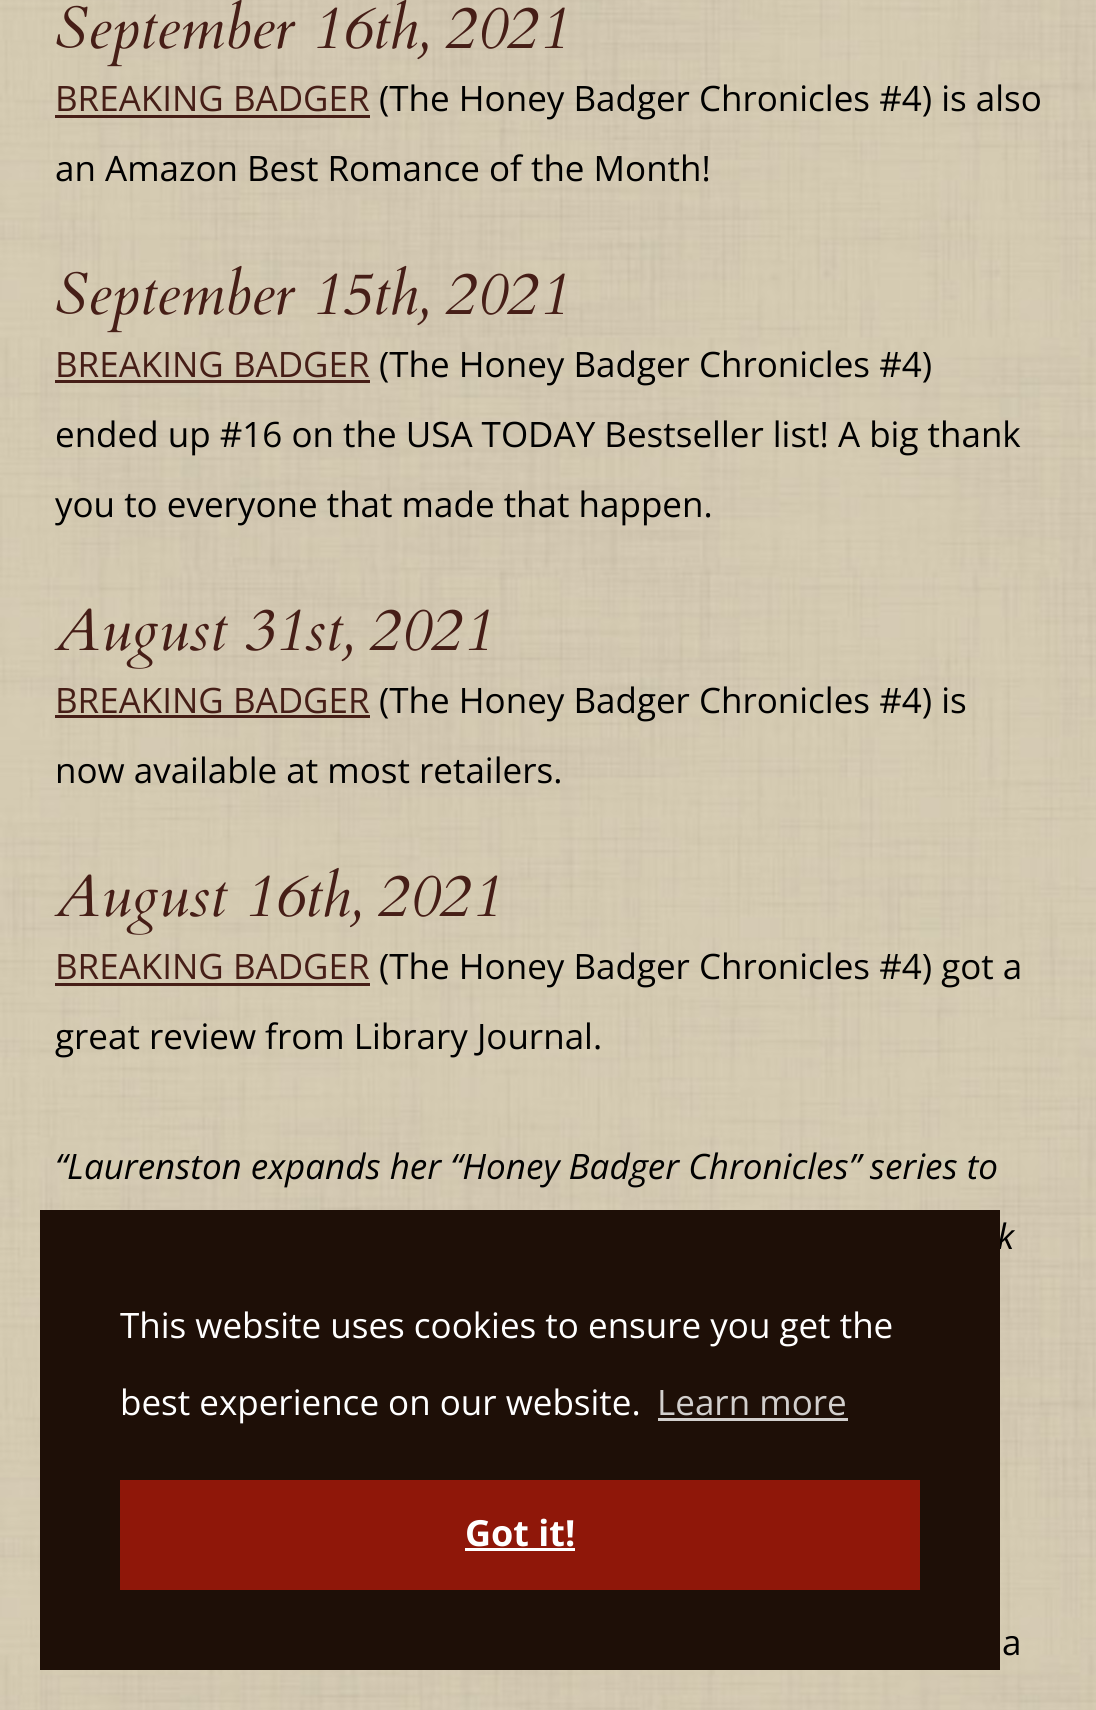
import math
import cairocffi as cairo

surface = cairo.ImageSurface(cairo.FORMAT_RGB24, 1096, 1710)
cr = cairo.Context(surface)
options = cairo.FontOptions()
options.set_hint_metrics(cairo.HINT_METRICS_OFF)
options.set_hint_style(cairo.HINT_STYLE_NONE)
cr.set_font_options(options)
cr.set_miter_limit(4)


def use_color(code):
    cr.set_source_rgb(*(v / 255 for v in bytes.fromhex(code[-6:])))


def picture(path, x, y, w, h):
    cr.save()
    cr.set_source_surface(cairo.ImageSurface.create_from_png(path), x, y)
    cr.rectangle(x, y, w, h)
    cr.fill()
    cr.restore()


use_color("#ffffff")
cr.paint()
picture("img1.png", 0, 0, 1096, 1710)
cr.select_font_face("Cardo", cairo.FONT_SLANT_ITALIC)
cr.set_font_size(60)
use_color("#461e17")
cr.move_to(55, 48)
cr.show_text("September 16th, 2021")
cr.select_font_face("Open Sans")
cr.set_font_size(35)
cr.move_to(55, 111)
cr.show_text("BREAKING BADGER")
cr.rectangle(55, 115, 315, 3)
cr.fill()
use_color("#000000")
cr.move_to(379, 111)
cr.show_text("(The Honey Badger Chronicles #4) is also")
cr.move_to(55, 181)
cr.show_text("an Amazon Best Romance of the Month!")
cr.select_font_face("Cardo", cairo.FONT_SLANT_ITALIC)
cr.set_font_size(60)
use_color("#461e17")
cr.move_to(55, 314)
cr.show_text("September 15th, 2021")
cr.select_font_face("Open Sans")
cr.set_font_size(35)
cr.move_to(55, 377)
cr.show_text("BREAKING BADGER")
cr.rectangle(55, 380, 315, 3)
cr.fill()
use_color("#000000")
cr.move_to(379, 377)
cr.show_text("(The Honey Badger Chronicles #4)")
cr.move_to(55, 447)
cr.show_text("ended up #16 on the USA TODAY Bestseller list! A big thank")
cr.move_to(55, 517)
cr.show_text("you to everyone that made that happen.")
cr.select_font_face("Cardo", cairo.FONT_SLANT_ITALIC)
cr.set_font_size(60)
use_color("#461e17")
cr.move_to(55, 650)
cr.show_text("August 31st, 2021")
cr.select_font_face("Open Sans")
cr.set_font_size(35)
cr.move_to(55, 713)
cr.show_text("BREAKING BADGER")
cr.rectangle(55, 715, 315, 3)
cr.fill()
use_color("#000000")
cr.move_to(379, 713)
cr.show_text("(The Honey Badger Chronicles #4) is")
cr.move_to(55, 783)
cr.show_text("now available at most retailers.")
cr.select_font_face("Cardo", cairo.FONT_SLANT_ITALIC)
cr.set_font_size(60)
use_color("#461e17")
cr.move_to(55, 916)
cr.show_text("August 16th, 2021")
cr.select_font_face("Open Sans")
cr.set_font_size(35)
cr.move_to(55, 979)
cr.show_text("BREAKING BADGER")
cr.rectangle(55, 983, 315, 3)
cr.fill()
use_color("#000000")
cr.move_to(379, 979)
cr.show_text("(The Honey Badger Chronicles #4) got a")
cr.move_to(55, 1049)
cr.show_text("great review from Library Journal.")
cr.select_font_face("Open Sans", cairo.FONT_SLANT_ITALIC)
cr.move_to(55, 1179)
cr.show_text("“Laurenston expands her “Honey Badger Chronicles” series to")
cr.move_to(997, 1249)
cr.show_text("k")
cr.select_font_face("Open Sans")
cr.move_to(1002, 1655)
cr.show_text("a")
use_color("#1e0f07")
cr.rectangle(40, 1210, 960, 460)
cr.fill()
use_color("#ffffff")
cr.move_to(120, 1338)
cr.show_text("This website uses cookies to ensure you get the")
cr.move_to(120, 1415)
cr.show_text("best experience on our website.")
use_color("#d2cfcd")
cr.move_to(657, 1415)
cr.show_text("Learn more")
cr.rectangle(658, 1418, 190, 3)
cr.fill()
use_color("#8f1709")
cr.rectangle(120, 1480, 800, 110)
cr.fill()
cr.select_font_face("Open Sans", cairo.FONT_SLANT_NORMAL, cairo.FONT_WEIGHT_BOLD)
cr.set_font_size(36)
use_color("#ffffff")
cr.move_to(465, 1546)
cr.show_text("Got it!")
cr.rectangle(465, 1548, 110, 3)
cr.fill()
surface.write_to_png("result.png")
